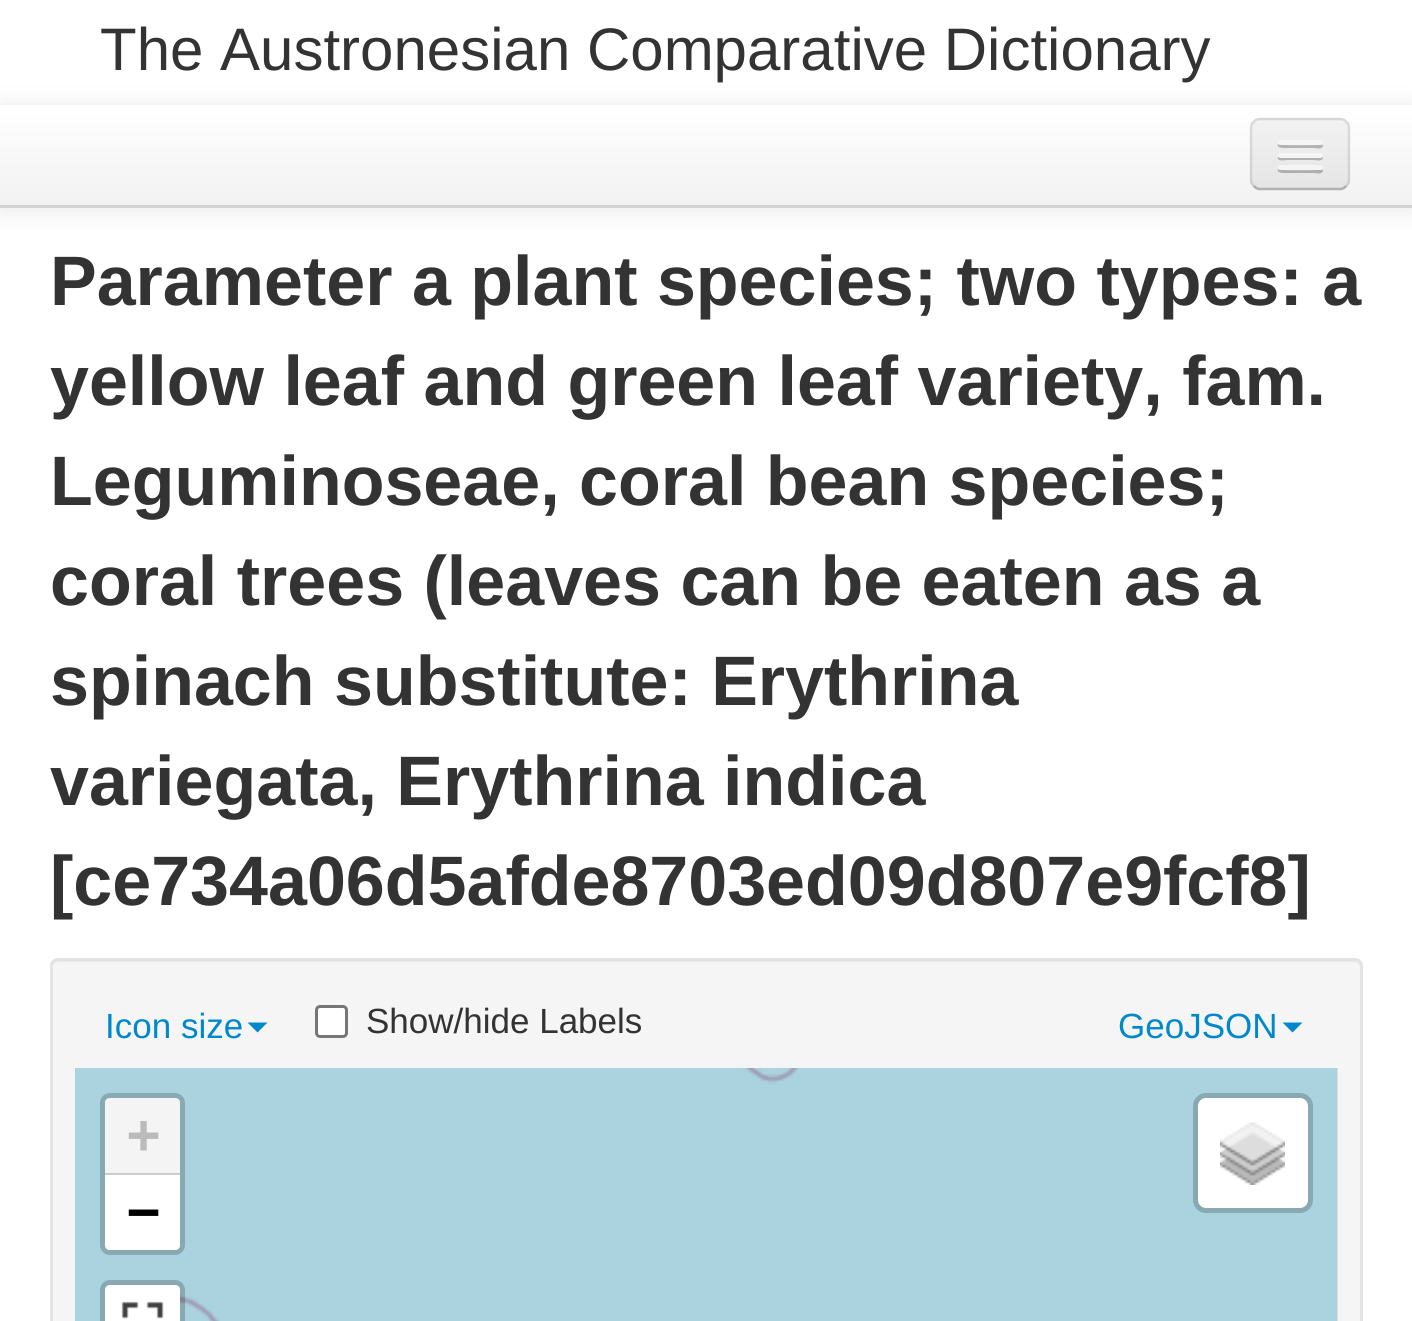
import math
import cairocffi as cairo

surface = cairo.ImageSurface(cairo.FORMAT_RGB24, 1412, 1321)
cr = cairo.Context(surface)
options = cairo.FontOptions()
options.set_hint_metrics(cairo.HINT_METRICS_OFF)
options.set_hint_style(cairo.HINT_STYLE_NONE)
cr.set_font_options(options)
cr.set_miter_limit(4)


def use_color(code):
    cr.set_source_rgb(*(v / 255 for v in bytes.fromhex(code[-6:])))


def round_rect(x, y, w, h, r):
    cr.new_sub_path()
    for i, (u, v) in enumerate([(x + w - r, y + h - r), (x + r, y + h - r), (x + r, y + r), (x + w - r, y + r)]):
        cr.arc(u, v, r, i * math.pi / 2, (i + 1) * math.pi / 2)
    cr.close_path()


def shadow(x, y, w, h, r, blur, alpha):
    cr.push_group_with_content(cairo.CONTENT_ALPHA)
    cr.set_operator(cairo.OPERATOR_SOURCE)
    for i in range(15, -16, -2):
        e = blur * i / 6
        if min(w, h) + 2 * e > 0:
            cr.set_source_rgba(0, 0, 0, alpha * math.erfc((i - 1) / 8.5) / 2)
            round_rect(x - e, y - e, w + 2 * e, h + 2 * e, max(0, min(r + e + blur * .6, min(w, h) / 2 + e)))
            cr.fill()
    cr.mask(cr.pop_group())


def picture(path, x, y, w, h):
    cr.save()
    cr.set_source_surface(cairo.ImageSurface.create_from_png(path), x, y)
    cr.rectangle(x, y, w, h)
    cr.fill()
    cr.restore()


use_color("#ffffff")
cr.paint()
use_color("#000000")
shadow(0, 108, 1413, 102, 0, 12.5, 0.1)
cr.select_font_face("Liberation Sans")
cr.set_font_size(60)
use_color("#333333")
cr.move_to(100, 70)
cr.show_text("The Austronesian Comparative Dictionary")
gradient = cairo.LinearGradient(706, 105, 706, 205)
gradient.add_color_stop_rgba(0, 1, 1, 1, 1)
gradient.add_color_stop_rgba(1, 0.949, 0.949, 0.949, 1)
cr.set_source(gradient)
cr.rectangle(0, 105, 1412, 100)
cr.fill()
use_color("#d4d4d4")
cr.rectangle(0, 205, 1412, 3)
cr.fill()
use_color("#ededed")
round_rect(1250, 118, 100, 72, 10)
cr.fill()
cr.save()
round_rect(1250, 118, 100, 72, 10)
cr.clip()
gradient = cairo.LinearGradient(1300, 120, 1300, 188)
gradient.add_color_stop_rgba(0, 0.949, 0.949, 0.949, 1)
gradient.add_color_stop_rgba(1, 0.898, 0.898, 0.898, 1)
cr.set_source(gradient)
cr.rectangle(1250, 120, 100, 68)
cr.fill()
cr.restore()
cr.new_path()
cr.move_to(1346, 186)
cr.curve_to(1344.5, 188, 1342.5, 189, 1340, 189)
cr.line_to(1260, 189)
cr.curve_to(1257.5, 189, 1255.5, 188, 1254, 186)
cr.set_source_rgba(0, 0, 0, 0.25)
cr.set_line_width(2.5)
cr.stroke()
cr.new_path()
cr.move_to(1254, 186)
cr.curve_to(1252, 184.5, 1251, 182.5, 1251, 180)
cr.line_to(1251, 127.5)
cr.curve_to(1251, 125, 1252, 123, 1254, 121.5)
cr.curve_to(1255.5, 119.5, 1257.5, 119, 1260, 119)
cr.line_to(1340, 119)
cr.curve_to(1342.5, 119, 1344.5, 119.5, 1346, 121.5)
cr.curve_to(1348, 123, 1349, 125, 1349, 127.5)
cr.line_to(1349, 180)
cr.curve_to(1349, 182.5, 1348, 184.5, 1346, 186)
cr.set_source_rgba(0, 0, 0, 0.1)
cr.stroke()
use_color("#b2b2b2")
cr.new_path()
cr.move_to(1278, 144)
cr.curve_to(1276, 149, 1287, 148, 1287, 148)
cr.line_to(1314, 148)
cr.curve_to(1315, 148, 1322, 150, 1323, 146)
cr.line_to(1322, 144)
cr.line_to(1320, 145)
cr.curve_to(1317, 145, 1280, 146, 1278, 144)
cr.close_path()
cr.fill()
use_color("#f5f5f5")
round_rect(1278, 140, 45, 5, 2.5)
cr.fill()
use_color("#b0b0b0")
cr.new_path()
cr.move_to(1278, 157)
cr.curve_to(1276, 162, 1286, 160, 1287, 160)
cr.line_to(1314, 160)
cr.curve_to(1315, 160, 1322, 162, 1323, 158)
cr.line_to(1322, 156)
cr.line_to(1320, 157)
cr.line_to(1280, 157)
cr.close_path()
cr.fill()
use_color("#f5f5f5")
round_rect(1278, 153, 45, 5, 2.5)
cr.fill()
use_color("#aeaeae")
cr.new_path()
cr.move_to(1278, 169)
cr.curve_to(1276, 174, 1287, 173, 1287, 173)
cr.line_to(1314, 173)
cr.curve_to(1315, 173, 1322, 175, 1323, 171)
cr.line_to(1322, 169)
cr.line_to(1320, 170)
cr.curve_to(1317, 170, 1280, 171, 1278, 169)
cr.close_path()
cr.fill()
use_color("#f5f5f5")
round_rect(1278, 165, 45, 5, 2.5)
cr.fill()
cr.select_font_face("Liberation Sans", cairo.FONT_SLANT_NORMAL, cairo.FONT_WEIGHT_BOLD)
cr.set_font_size(70)
use_color("#333333")
cr.move_to(50, 305)
cr.show_text("Parameter a plant species; two types: a")
cr.move_to(50, 405)
cr.show_text("yellow leaf and green leaf variety, fam.")
cr.move_to(50, 505)
cr.show_text("Leguminoseae, coral bean species;")
cr.move_to(50, 605)
cr.show_text("coral trees (leaves can be eaten as a")
cr.move_to(50, 705)
cr.show_text("spinach substitute: Erythrina")
cr.move_to(50, 805)
cr.show_text("variegata, Erythrina indica")
cr.move_to(50, 905)
cr.show_text("[ce734a06d5afde8703ed09d807e9fcf8]")
use_color("#f5f5f5")
round_rect(50, 958, 1313, 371, 8)
cr.fill()
use_color("#e9e9e9")
cr.new_path()
cr.move_to(58, 962)
cr.line_to(1355, 962)
cr.curve_to(1358, 962, 1360, 965, 1360, 968)
cr.line_to(1360, 965)
cr.curve_to(1360, 962, 1358, 960, 1355, 960)
cr.line_to(58, 960)
cr.curve_to(55, 960, 53, 962, 53, 965)
cr.curve_to(54, 963, 56, 962, 58, 962)
cr.close_path()
cr.fill()
round_rect(51.5, 959.5, 1310, 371, 6.5)
use_color("#e3e3e3")
cr.set_line_width(3)
cr.stroke()
cr.select_font_face("Liberation Sans")
cr.set_font_size(35)
use_color("#0088cc")
cr.move_to(105, 1038)
cr.show_text("Icon size")
cr.new_path()
cr.move_to(247.5, 1022.5)
cr.line_to(267.5, 1022.5)
cr.line_to(257.5, 1032.5)
cr.close_path()
cr.fill()
use_color("#ffffff")
round_rect(316.5, 1006.5, 30, 30, 3.5)
cr.fill_preserve()
use_color("#767676")
cr.stroke()
use_color("#333333")
cr.move_to(366, 1033)
cr.show_text("Show/hide Labels")
use_color("#0088cc")
cr.move_to(1118, 1038)
cr.show_text("GeoJSON")
cr.new_path()
cr.move_to(1282.5, 1022.5)
cr.line_to(1302.5, 1022.5)
cr.line_to(1292.5, 1032.5)
cr.close_path()
cr.fill()
use_color("#dddddd")
cr.rectangle(1337, 1068, 1, 253)
cr.fill()
use_color("#aad3df")
cr.rectangle(75, 1068, 367, 105)
cr.fill()
picture("img1.png", 442, 1068, 640, 105)
cr.rectangle(1082, 1068, 255, 105)
cr.fill()
picture("img2.png", 75, 1173, 367, 148)
cr.rectangle(442, 1173, 895, 148)
cr.fill()
round_rect(102.5, 1095.5, 80, 157, 7.5)
use_color("#88a9b2")
cr.set_line_width(5)
cr.stroke()
use_color("#f4f4f4")
cr.new_path()
cr.move_to(110, 1098)
cr.line_to(175, 1098)
cr.curve_to(178, 1098, 180, 1100, 180, 1103)
cr.line_to(180, 1175)
cr.line_to(105, 1175)
cr.line_to(105, 1103)
cr.curve_to(105, 1100, 107, 1098, 110, 1098)
cr.close_path()
cr.fill()
use_color("#cccccc")
cr.rectangle(105, 1173, 75, 2)
cr.fill()
cr.select_font_face("DejaVu Sans Mono", cairo.FONT_SLANT_NORMAL, cairo.FONT_WEIGHT_BOLD)
cr.set_font_size(55)
use_color("#bbbbbb")
cr.move_to(127, 1153)
cr.show_text("+")
use_color("#ffffff")
cr.new_path()
cr.move_to(105, 1175)
cr.line_to(180, 1175)
cr.line_to(180, 1245)
cr.curve_to(180, 1248, 178, 1250, 175, 1250)
cr.line_to(110, 1250)
cr.curve_to(107, 1250, 105, 1248, 105, 1245)
cr.close_path()
cr.fill()
use_color("#000000")
cr.move_to(127, 1230)
cr.show_text("−")
round_rect(102.5, 1282.5, 80, 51, 7.5)
cr.set_source_rgba(0, 0, 0, 0.2)
cr.stroke()
use_color("#ffffff")
round_rect(105, 1285, 75, 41, 5)
cr.fill()
picture("img3.png", 121, 1301, 43, 18)
round_rect(1198, 1098, 110, 110, 8)
cr.fill()
round_rect(1195.5, 1095.5, 115, 115, 10.5)
cr.set_source_rgba(0, 0, 0, 0.2)
cr.stroke()
picture("img4.png", 1220, 1122, 65, 63)
surface.write_to_png("result.png")
